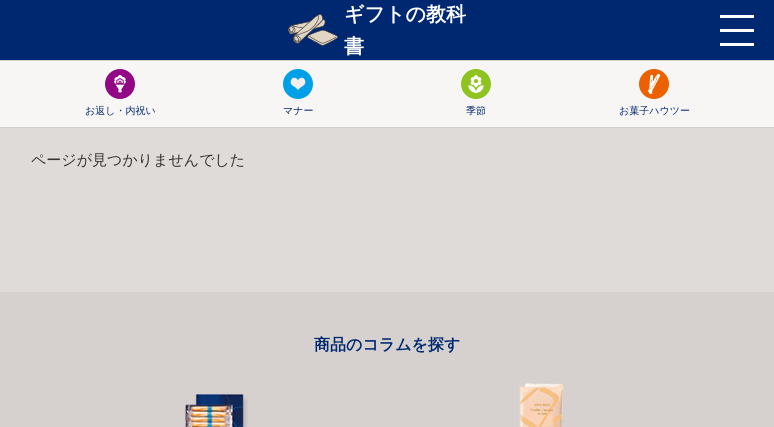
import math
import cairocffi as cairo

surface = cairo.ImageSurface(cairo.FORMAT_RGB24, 774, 427)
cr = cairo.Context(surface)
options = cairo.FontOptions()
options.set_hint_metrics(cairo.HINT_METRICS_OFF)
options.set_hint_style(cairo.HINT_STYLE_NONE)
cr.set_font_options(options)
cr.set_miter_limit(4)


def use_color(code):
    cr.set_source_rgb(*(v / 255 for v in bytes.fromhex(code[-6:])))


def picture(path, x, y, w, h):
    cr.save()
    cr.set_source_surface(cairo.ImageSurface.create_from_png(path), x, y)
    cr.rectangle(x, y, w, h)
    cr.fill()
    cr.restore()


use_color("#dfdbd9")
cr.paint()
use_color("#002870")
cr.rectangle(0, 0, 774, 60)
cr.fill()
use_color("#d4d0ce")
cr.rectangle(0, 60, 774, 1)
cr.fill()
picture("img1.png", 288, 14, 50, 32)
cr.select_font_face("WenQuanYi Zen Hei", cairo.FONT_SLANT_NORMAL, cairo.FONT_WEIGHT_BOLD)
cr.set_font_size(20)
use_color("#ffffff")
cr.move_to(344, 21)
cr.show_text("ギフトの教科")
cr.move_to(344, 53)
cr.show_text("書")
cr.rectangle(720, 15, 34, 3)
cr.fill()
cr.rectangle(720, 29, 34, 3)
cr.fill()
cr.rectangle(720, 43, 34, 3)
cr.fill()
use_color("#f7f6f5")
cr.rectangle(0, 61, 774, 66)
cr.fill()
use_color("#d4d0ce")
cr.rectangle(0, 127, 774, 1)
cr.fill()
use_color("#920783")
cr.arc(120, 84, 15, 0, 2 * math.pi)
cr.fill()
picture("img2.png", 114, 75, 12, 18)
cr.select_font_face("WenQuanYi Zen Hei Medium")
cr.set_font_size(10)
use_color("#002870")
cr.move_to(85, 114)
cr.show_text("お返し・内祝い")
use_color("#00a0e9")
cr.new_path()
cr.arc(298, 84, 15, 0, 2 * math.pi)
cr.fill()
picture("img3.png", 290, 77, 16, 14)
use_color("#002870")
cr.move_to(283, 114)
cr.show_text("マナー")
use_color("#8fc31f")
cr.new_path()
cr.arc(476, 84, 15, 0, 2 * math.pi)
cr.fill()
picture("img4.png", 468, 75, 16, 18)
use_color("#002870")
cr.move_to(466, 114)
cr.show_text("季節")
use_color("#eb6100")
cr.new_path()
cr.arc(654, 84, 15, 0, 2 * math.pi)
cr.fill()
picture("img5.png", 647, 74, 14, 20)
use_color("#002870")
cr.move_to(619, 114)
cr.show_text("お菓子ハウツー")
cr.set_font_size(15)
use_color("#333333")
cr.move_to(31, 165)
cr.show_text("ページが見つかりませんでした")
use_color("#d6d1ce")
cr.rectangle(0, 292, 774, 135)
cr.fill()
cr.select_font_face("WenQuanYi Zen Hei", cairo.FONT_SLANT_NORMAL, cairo.FONT_WEIGHT_BOLD)
cr.set_font_size(16)
use_color("#002870")
cr.move_to(314, 350)
cr.show_text("商品のコラムを探す")
picture("img6.png", 185, 394, 63, 33)
picture("img7.png", 519, 383, 45, 44)
surface.write_to_png("result.png")
